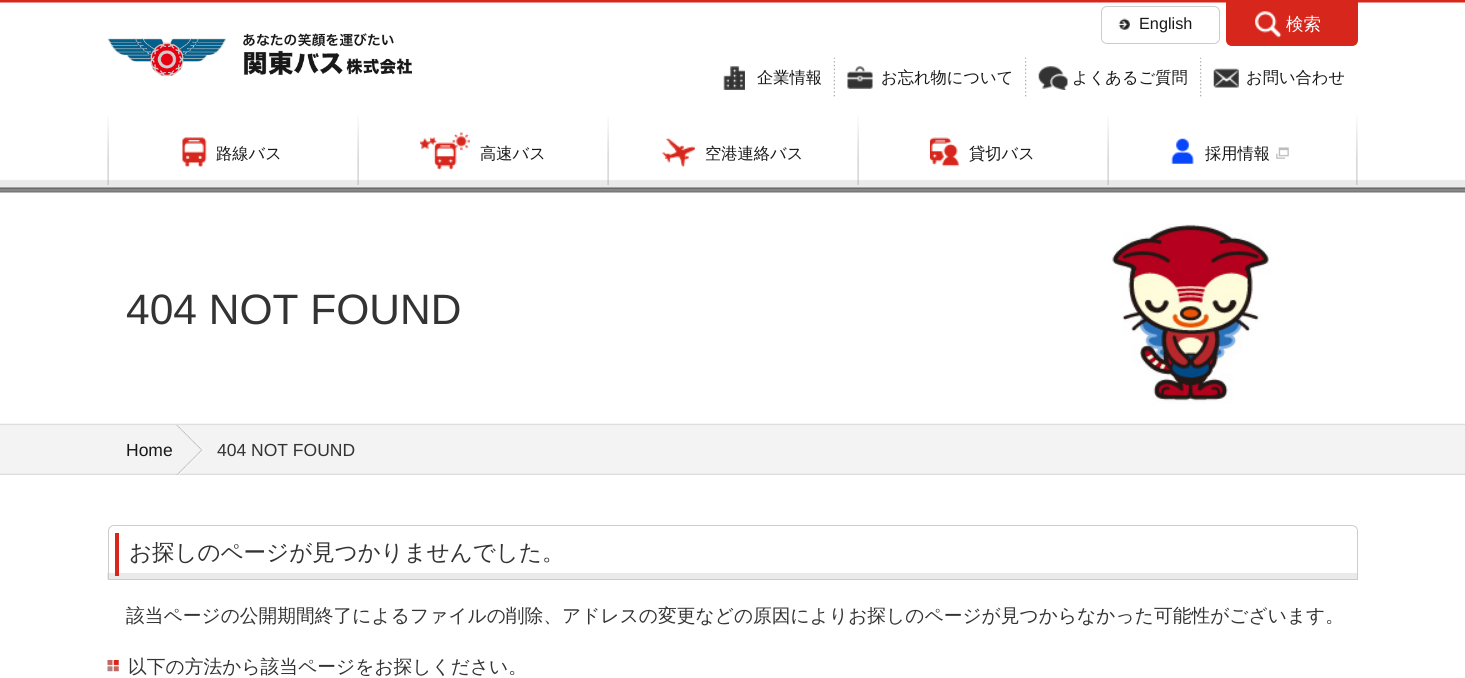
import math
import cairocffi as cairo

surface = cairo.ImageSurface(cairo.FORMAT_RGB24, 1465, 678)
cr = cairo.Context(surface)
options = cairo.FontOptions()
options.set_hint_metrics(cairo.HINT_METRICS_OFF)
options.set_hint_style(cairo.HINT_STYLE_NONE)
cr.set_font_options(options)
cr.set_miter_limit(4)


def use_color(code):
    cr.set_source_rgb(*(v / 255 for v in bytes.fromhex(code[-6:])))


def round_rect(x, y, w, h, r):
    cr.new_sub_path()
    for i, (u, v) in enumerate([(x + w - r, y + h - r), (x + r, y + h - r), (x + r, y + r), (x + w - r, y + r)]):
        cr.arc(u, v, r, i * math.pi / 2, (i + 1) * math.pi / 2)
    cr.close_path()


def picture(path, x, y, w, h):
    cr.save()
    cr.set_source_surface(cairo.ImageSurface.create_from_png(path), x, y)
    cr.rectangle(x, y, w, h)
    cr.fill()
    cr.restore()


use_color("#ffffff")
cr.paint()
picture("img1.png", 0, 0, 1465, 475)
picture("img2.png", 107, 33, 305, 44)
picture("img3.png", 1118, 18, 12, 12)
round_rect(1101.5, 6.5, 118, 37, 5.5)
use_color("#cccccc")
cr.set_line_width(1)
cr.stroke()
cr.select_font_face("Liberation Sans")
cr.set_font_size(16.25)
use_color("#181818")
cr.move_to(1139, 29)
cr.show_text("English")
use_color("#d7261c")
cr.new_path()
cr.move_to(1226, 0)
cr.line_to(1358, 0)
cr.line_to(1358, 40)
cr.curve_to(1358, 43.5, 1355.5, 46, 1352, 46)
cr.line_to(1232, 46)
cr.curve_to(1228.5, 46, 1226, 43.5, 1226, 40)
cr.close_path()
cr.fill()
picture("img4.png", 1255, 11, 27, 27)
cr.select_font_face("WenQuanYi Zen Hei Medium")
cr.set_font_size(17.5)
use_color("#ffffff")
cr.move_to(1286, 30)
cr.show_text("検索")
picture("img5.png", 723, 66, 22, 24)
cr.set_font_size(16.25)
use_color("#181818")
cr.move_to(757, 83)
cr.show_text("企業情報")
picture("img6.png", 833, 57, 2, 40)
picture("img7.png", 847, 66, 26, 23)
cr.move_to(881, 83)
cr.show_text("お忘れ物について")
picture("img8.png", 1025, 57, 2, 40)
picture("img9.png", 1038, 66, 30, 24)
cr.move_to(1072, 83)
cr.show_text("よくあるご質問")
picture("img8.png", 1200, 57, 2, 40)
picture("img10.png", 1213, 68, 26, 20)
cr.move_to(1246, 83)
cr.show_text("お問い合わせ")
picture("img11.png", 1356, 116, 2, 69)
picture("img12.png", 107, 116, 2, 69)
picture("img13.png", 182, 137, 25, 30)
cr.move_to(216, 159)
cr.show_text("路線バス")
picture("img12.png", 357, 116, 2, 69)
picture("img14.png", 420, 132, 50, 38)
cr.move_to(480, 159)
cr.show_text("高速バス")
picture("img12.png", 607, 116, 2, 69)
picture("img15.png", 662, 138, 33, 29)
cr.move_to(705, 159)
cr.show_text("空港連絡バス")
picture("img12.png", 857, 116, 2, 69)
picture("img16.png", 930, 137, 29, 30)
cr.move_to(969, 159)
cr.show_text("貸切バス")
picture("img12.png", 1107, 116, 2, 69)
picture("img17.png", 1171, 138, 23, 26)
cr.move_to(1205, 159)
cr.show_text("採用情報")
picture("img18.png", 1276, 147, 13, 12)
picture("img19.png", 1112, 224, 159, 180)
cr.select_font_face("Liberation Sans")
cr.set_font_size(42.5)
use_color("#333333")
cr.move_to(126, 324)
cr.show_text("404 NOT FOUND")
picture("img20.png", 176, 425, 28, 50)
cr.set_font_size(17.5)
use_color("#181818")
cr.move_to(126, 456)
cr.show_text("Home")
use_color("#333333")
cr.move_to(217, 456)
cr.show_text("404 NOT FOUND")
use_color("#eaeaea")
cr.rectangle(107, 573, 1251, 6)
cr.fill()
cr.new_path()
cr.move_to(114, 525.5)
cr.line_to(1352, 525.5)
cr.curve_to(1355, 525.5, 1357.5, 528, 1357.5, 531)
cr.line_to(1357.5, 579.5)
cr.line_to(108.5, 579.5)
cr.line_to(108.5, 531)
cr.curve_to(108.5, 528, 111, 525.5, 114, 525.5)
cr.close_path()
use_color("#cccccc")
cr.stroke()
use_color("#d7261c")
cr.rectangle(115, 533, 4, 43)
cr.fill()
cr.select_font_face("WenQuanYi Zen Hei Medium")
cr.set_font_size(22.5)
use_color("#333333")
cr.move_to(129, 560)
cr.show_text("お探しのページが見つかりませんでした。")
cr.set_font_size(18.75)
cr.move_to(126, 622)
cr.show_text("該当ページの公開期間終了によるファイルの削除、アドレスの変更などの原因によりお探しのページが見つからなかった可能性がございます。")
picture("img21.png", 107, 660, 12, 12)
cr.move_to(128, 673)
cr.show_text("以下の方法から該当ページをお探しください。")
surface.write_to_png("result.png")
